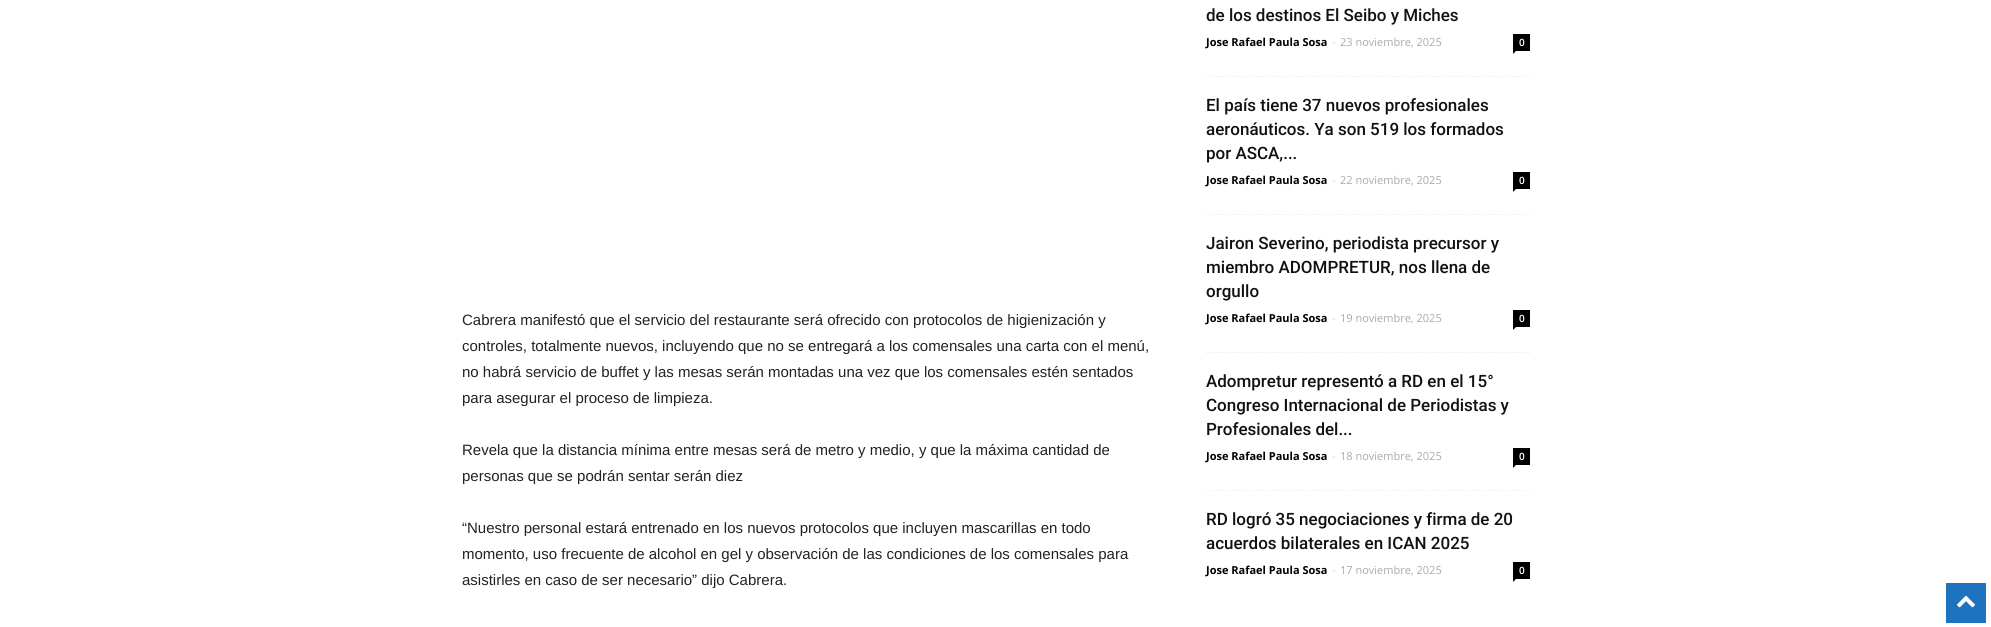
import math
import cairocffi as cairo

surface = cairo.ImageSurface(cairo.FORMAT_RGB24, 1991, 627)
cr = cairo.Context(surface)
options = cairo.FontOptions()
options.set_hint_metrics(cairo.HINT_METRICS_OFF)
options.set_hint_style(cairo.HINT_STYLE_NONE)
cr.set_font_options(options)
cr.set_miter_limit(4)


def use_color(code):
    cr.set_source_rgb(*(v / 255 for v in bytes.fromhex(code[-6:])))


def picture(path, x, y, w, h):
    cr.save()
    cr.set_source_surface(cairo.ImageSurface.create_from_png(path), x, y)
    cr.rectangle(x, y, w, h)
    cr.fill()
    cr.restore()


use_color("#ffffff")
cr.paint()
cr.select_font_face("Liberation Sans")
cr.set_font_size(15)
use_color("#222222")
cr.move_to(462, 325)
cr.show_text("Cabrera manifestó que el servicio del restaurante será ofrecido con protocolos de higienización y")
cr.move_to(462, 351)
cr.show_text("controles, totalmente nuevos, incluyendo que no se entregará a los comensales una carta con el menú,")
cr.move_to(462, 377)
cr.show_text("no habrá servicio de buffet y las mesas serán montadas una vez que los comensales estén sentados")
cr.move_to(462, 403)
cr.show_text("para asegurar el proceso de limpieza.")
cr.move_to(462, 455)
cr.show_text("Revela que la distancia mínima entre mesas será de metro y medio, y que la máxima cantidad de")
cr.move_to(462, 481)
cr.show_text("personas que se podrán sentar serán diez")
cr.move_to(462, 533)
cr.show_text("“Nuestro personal estará entrenado en los nuevos protocolos que incluyen mascarillas en todo")
cr.move_to(462, 559)
cr.show_text("momento, uso frecuente de alcohol en gel y observación de las condiciones de los comensales para")
cr.move_to(462, 585)
cr.show_text("asistirles en caso de ser necesario” dijo Cabrera.")
cr.new_path()
cr.move_to(1206, 76.5)
cr.line_to(1530, 76.5)
use_color("#f2f2f2")
cr.set_line_width(1)
cr.set_dash([3, 2.02])
cr.stroke()
cr.select_font_face("Roboto Medium")
cr.set_font_size(17)
use_color("#111111")
cr.move_to(1206, 21)
cr.show_text("de los destinos El Seibo y Miches")
cr.select_font_face("Open Sans", cairo.FONT_SLANT_NORMAL, cairo.FONT_WEIGHT_BOLD)
cr.set_font_size(11)
use_color("#000000")
cr.move_to(1206, 46)
cr.show_text("Jose Rafael Paula Sosa")
cr.select_font_face("Open Sans")
use_color("#cccccc")
cr.move_to(1332, 46)
cr.show_text("-")
use_color("#aaaaaa")
cr.move_to(1340, 46)
cr.show_text("23 noviembre, 2025")
use_color("#000000")
cr.rectangle(1513, 34, 17, 17)
cr.fill()
cr.select_font_face("Open Sans SemiBold")
cr.set_font_size(10)
use_color("#ffffff")
cr.move_to(1519, 46)
cr.show_text("0")
use_color("#000000")
cr.new_path()
cr.move_to(1513, 51)
cr.line_to(1516, 51)
cr.line_to(1513, 54)
cr.close_path()
cr.fill()
cr.new_path()
cr.move_to(1206, 214.5)
cr.line_to(1530, 214.5)
use_color("#f2f2f2")
cr.stroke()
cr.select_font_face("Roboto Medium")
cr.set_font_size(17)
use_color("#111111")
cr.move_to(1206, 111)
cr.show_text("El país tiene 37 nuevos profesionales")
cr.move_to(1206, 135)
cr.show_text("aeronáuticos. Ya son 519 los formados")
cr.move_to(1206, 159)
cr.show_text("por ASCA,...")
cr.select_font_face("Open Sans", cairo.FONT_SLANT_NORMAL, cairo.FONT_WEIGHT_BOLD)
cr.set_font_size(11)
use_color("#000000")
cr.move_to(1206, 184)
cr.show_text("Jose Rafael Paula Sosa")
cr.select_font_face("Open Sans")
use_color("#cccccc")
cr.move_to(1332, 184)
cr.show_text("-")
use_color("#aaaaaa")
cr.move_to(1340, 184)
cr.show_text("22 noviembre, 2025")
use_color("#000000")
cr.rectangle(1513, 172, 17, 17)
cr.fill()
cr.select_font_face("Open Sans SemiBold")
cr.set_font_size(10)
use_color("#ffffff")
cr.move_to(1519, 184)
cr.show_text("0")
use_color("#000000")
cr.new_path()
cr.move_to(1513, 189)
cr.line_to(1516, 189)
cr.line_to(1513, 192)
cr.close_path()
cr.fill()
cr.new_path()
cr.move_to(1206, 352.5)
cr.line_to(1530, 352.5)
use_color("#f2f2f2")
cr.stroke()
cr.select_font_face("Roboto Medium")
cr.set_font_size(17)
use_color("#111111")
cr.move_to(1206, 249)
cr.show_text("Jairon Severino, periodista precursor y")
cr.move_to(1206, 273)
cr.show_text("miembro ADOMPRETUR, nos llena de")
cr.move_to(1206, 297)
cr.show_text("orgullo")
cr.select_font_face("Open Sans", cairo.FONT_SLANT_NORMAL, cairo.FONT_WEIGHT_BOLD)
cr.set_font_size(11)
use_color("#000000")
cr.move_to(1206, 322)
cr.show_text("Jose Rafael Paula Sosa")
cr.select_font_face("Open Sans")
use_color("#cccccc")
cr.move_to(1332, 322)
cr.show_text("-")
use_color("#aaaaaa")
cr.move_to(1340, 322)
cr.show_text("19 noviembre, 2025")
use_color("#000000")
cr.rectangle(1513, 310, 17, 17)
cr.fill()
cr.select_font_face("Open Sans SemiBold")
cr.set_font_size(10)
use_color("#ffffff")
cr.move_to(1519, 322)
cr.show_text("0")
use_color("#000000")
cr.new_path()
cr.move_to(1513, 327)
cr.line_to(1516, 327)
cr.line_to(1513, 330)
cr.close_path()
cr.fill()
cr.new_path()
cr.move_to(1206, 490.5)
cr.line_to(1530, 490.5)
use_color("#f2f2f2")
cr.stroke()
cr.select_font_face("Roboto Medium")
cr.set_font_size(17)
use_color("#111111")
cr.move_to(1206, 387)
cr.show_text("Adompretur representó a RD en el 15°")
cr.move_to(1206, 411)
cr.show_text("Congreso Internacional de Periodistas y")
cr.move_to(1206, 435)
cr.show_text("Profesionales del...")
cr.select_font_face("Open Sans", cairo.FONT_SLANT_NORMAL, cairo.FONT_WEIGHT_BOLD)
cr.set_font_size(11)
use_color("#000000")
cr.move_to(1206, 460)
cr.show_text("Jose Rafael Paula Sosa")
cr.select_font_face("Open Sans")
use_color("#cccccc")
cr.move_to(1332, 460)
cr.show_text("-")
use_color("#aaaaaa")
cr.move_to(1340, 460)
cr.show_text("18 noviembre, 2025")
use_color("#000000")
cr.rectangle(1513, 448, 17, 17)
cr.fill()
cr.select_font_face("Open Sans SemiBold")
cr.set_font_size(10)
use_color("#ffffff")
cr.move_to(1519, 460)
cr.show_text("0")
use_color("#000000")
cr.new_path()
cr.move_to(1513, 465)
cr.line_to(1516, 465)
cr.line_to(1513, 468)
cr.close_path()
cr.fill()
cr.select_font_face("Roboto Medium")
cr.set_font_size(17)
use_color("#111111")
cr.move_to(1206, 525)
cr.show_text("RD logró 35 negociaciones y firma de 20")
cr.move_to(1206, 549)
cr.show_text("acuerdos bilaterales en ICAN 2025")
cr.select_font_face("Open Sans", cairo.FONT_SLANT_NORMAL, cairo.FONT_WEIGHT_BOLD)
cr.set_font_size(11)
use_color("#000000")
cr.move_to(1206, 574)
cr.show_text("Jose Rafael Paula Sosa")
cr.select_font_face("Open Sans")
use_color("#cccccc")
cr.move_to(1332, 574)
cr.show_text("-")
use_color("#aaaaaa")
cr.move_to(1340, 574)
cr.show_text("17 noviembre, 2025")
use_color("#000000")
cr.rectangle(1513, 562, 17, 17)
cr.fill()
cr.select_font_face("Open Sans SemiBold")
cr.set_font_size(10)
use_color("#ffffff")
cr.move_to(1519, 574)
cr.show_text("0")
use_color("#000000")
cr.new_path()
cr.move_to(1513, 579)
cr.line_to(1516, 579)
cr.line_to(1513, 582)
cr.close_path()
cr.fill()
use_color("#1e73be")
cr.rectangle(1946, 583, 40, 40)
cr.fill()
picture("img1.png", 1957, 595, 18, 13)
surface.write_to_png("result.png")
